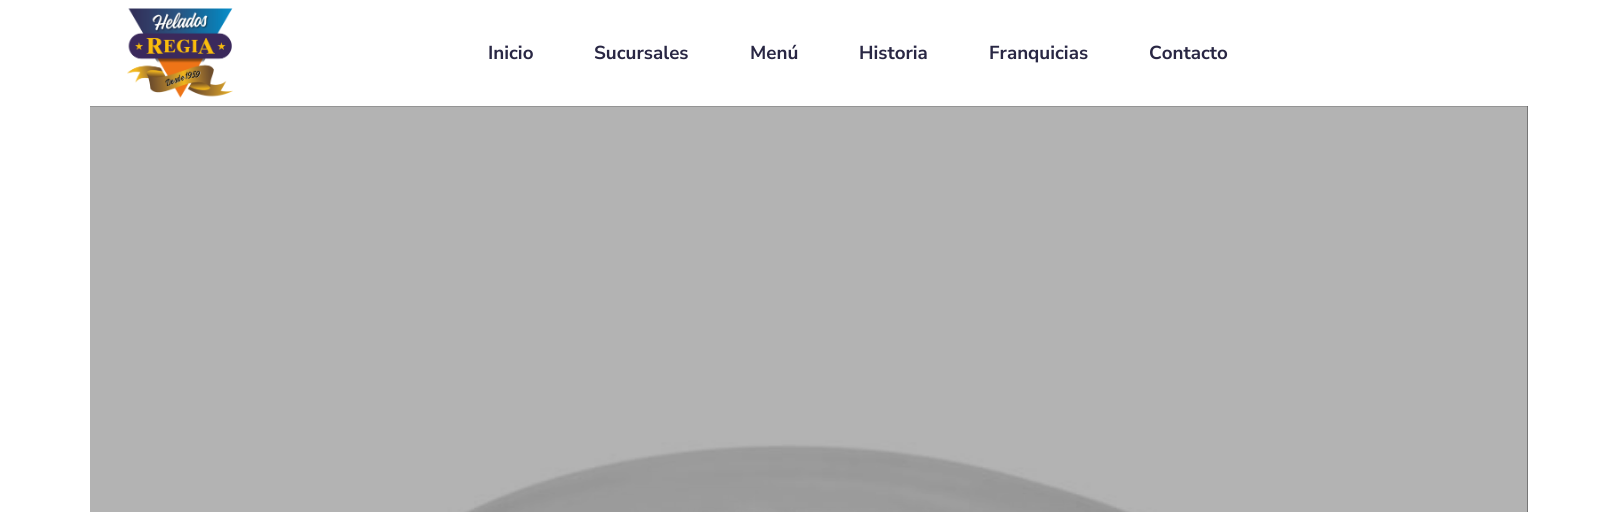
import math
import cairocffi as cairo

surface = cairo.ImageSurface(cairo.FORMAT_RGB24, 1617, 512)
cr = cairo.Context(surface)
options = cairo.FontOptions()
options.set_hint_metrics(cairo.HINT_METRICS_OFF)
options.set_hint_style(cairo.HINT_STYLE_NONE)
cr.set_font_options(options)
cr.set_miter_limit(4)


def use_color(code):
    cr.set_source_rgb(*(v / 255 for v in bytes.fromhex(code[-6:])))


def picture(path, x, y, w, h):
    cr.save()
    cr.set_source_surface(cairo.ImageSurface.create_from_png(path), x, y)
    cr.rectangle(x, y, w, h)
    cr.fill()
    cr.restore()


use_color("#ffffff")
cr.paint()
picture("img1.png", 127, 8, 106, 90)
cr.select_font_face("Nunito Sans", cairo.FONT_SLANT_NORMAL, cairo.FONT_WEIGHT_BOLD)
cr.set_font_size(18.75)
use_color("#292744")
cr.move_to(488, 59)
cr.show_text("Inicio")
cr.move_to(594, 59)
cr.show_text("Sucursales")
cr.move_to(750, 59)
cr.show_text("Menú")
cr.move_to(859, 59)
cr.show_text("Historia")
cr.move_to(989, 59)
cr.show_text("Franquicias")
cr.move_to(1149, 59)
cr.show_text("Contacto")
use_color("#585858")
cr.rectangle(90, 106, 1438, 406)
cr.fill()
picture("img2.png", 90, 106, 1438, 406)
picture("img3.png", 90, 106, 1438, 406)
surface.write_to_png("result.png")
